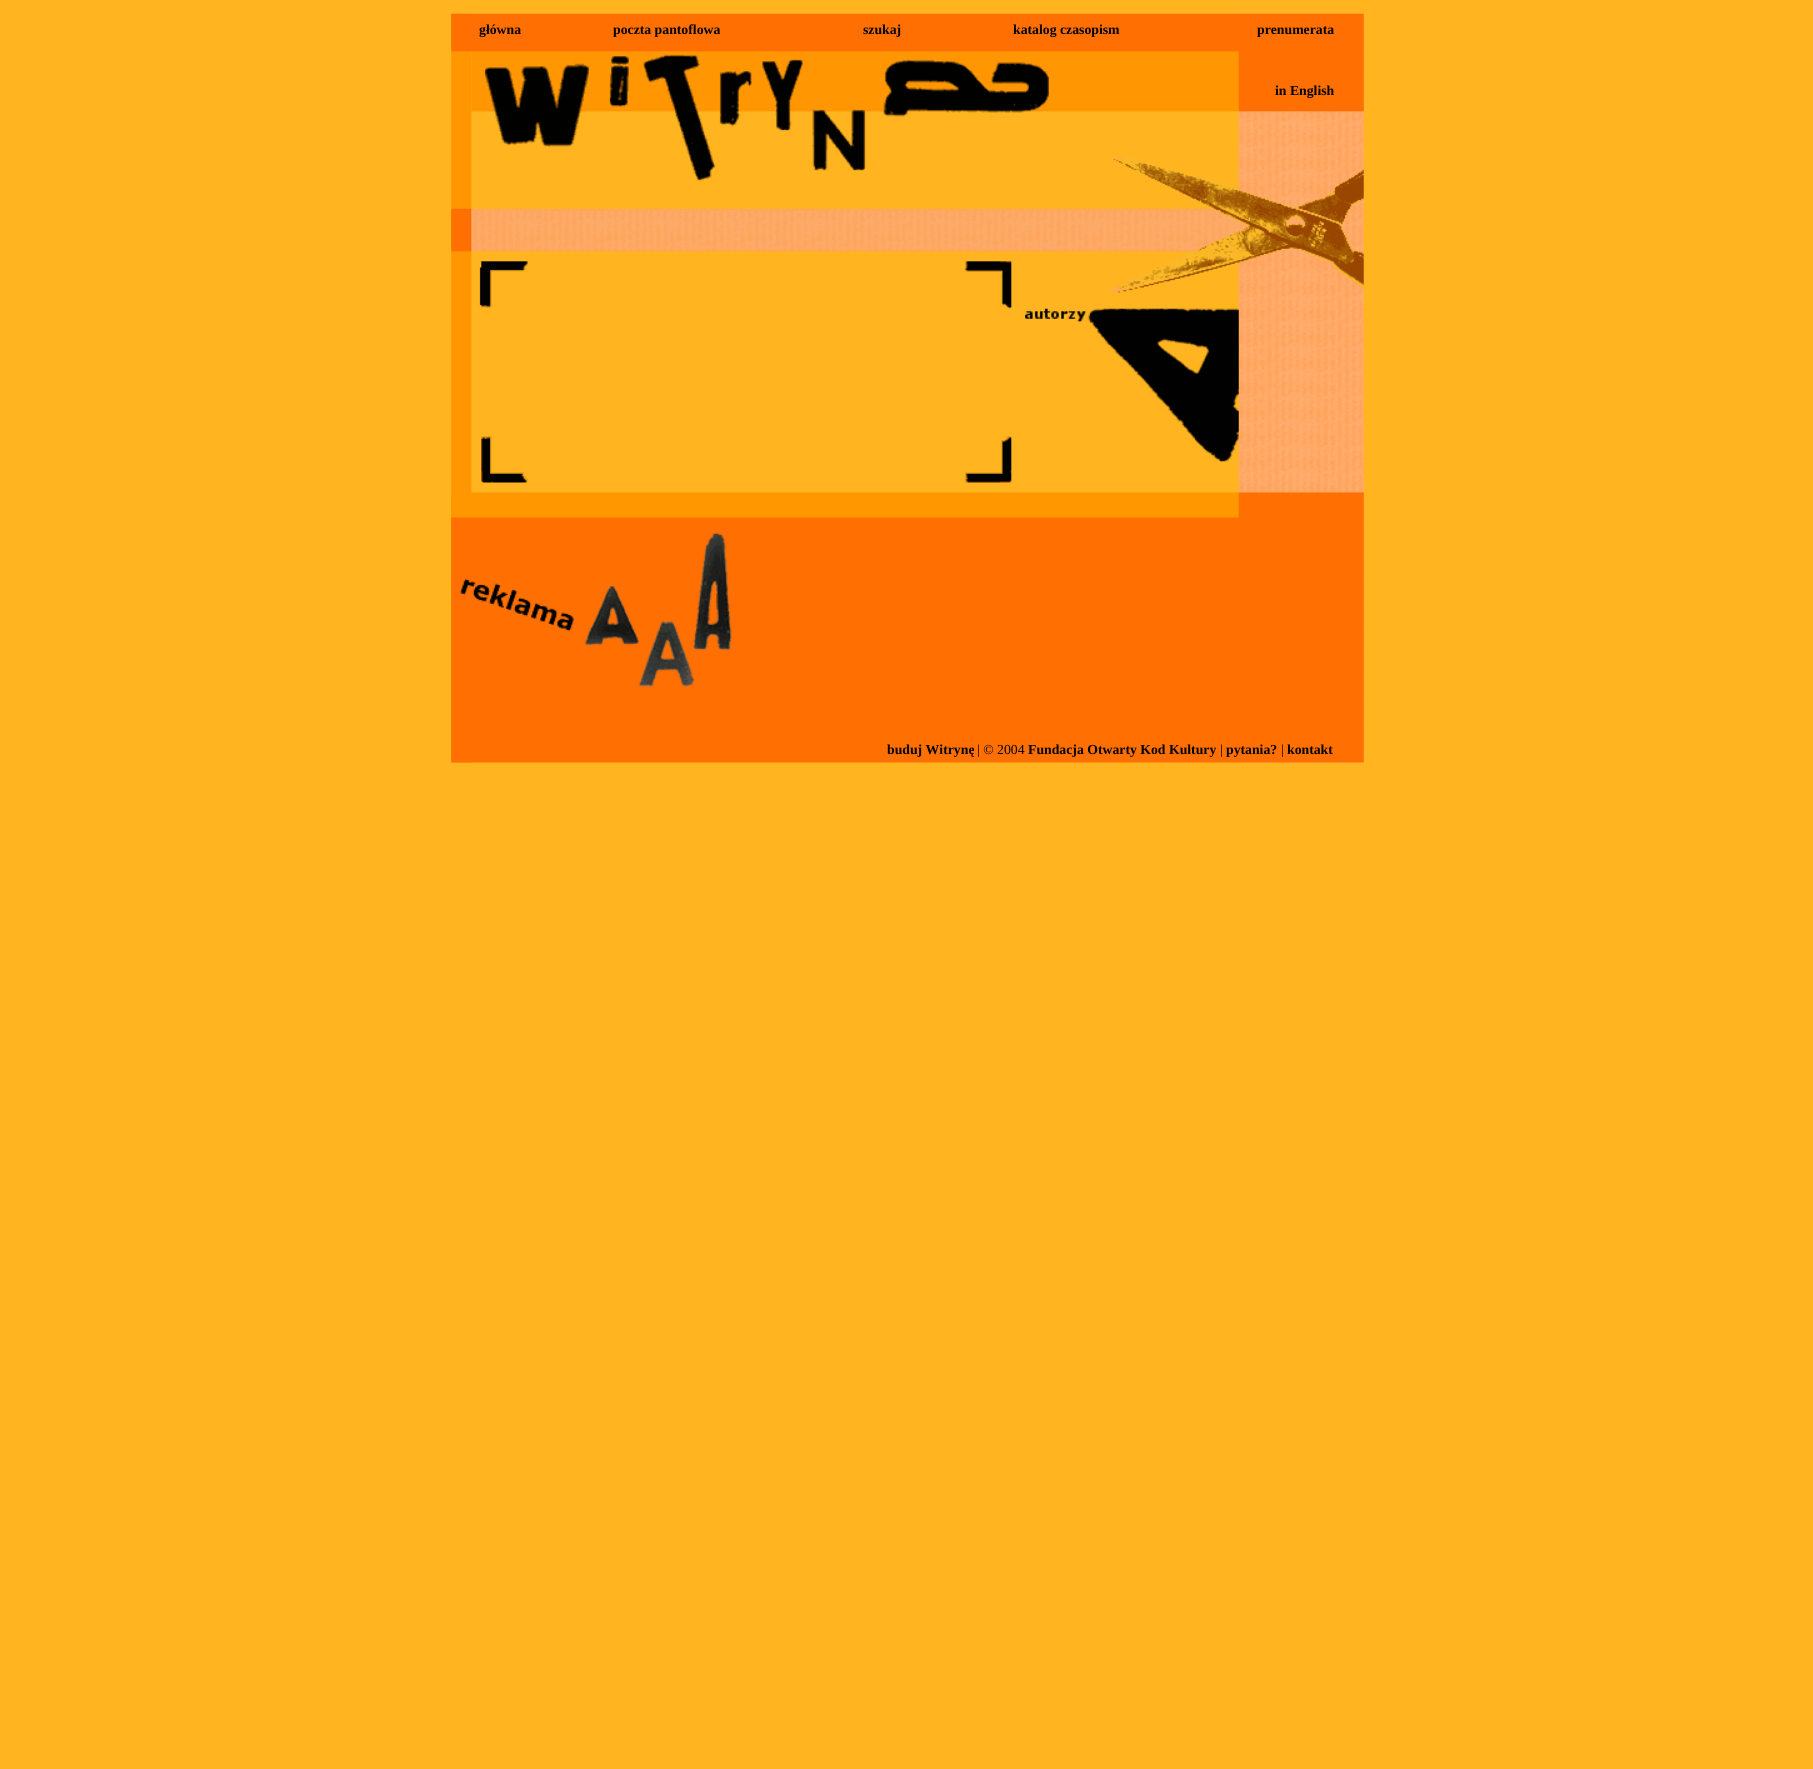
import math
import cairocffi as cairo

surface = cairo.ImageSurface(cairo.FORMAT_RGB24, 1813, 1769)
cr = cairo.Context(surface)
options = cairo.FontOptions()
options.set_hint_metrics(cairo.HINT_METRICS_OFF)
options.set_hint_style(cairo.HINT_STYLE_NONE)
cr.set_font_options(options)
cr.set_miter_limit(4)


def use_color(code):
    cr.set_source_rgb(*(v / 255 for v in bytes.fromhex(code[-6:])))


def picture(path, x, y, w, h):
    cr.save()
    cr.set_source_surface(cairo.ImageSurface.create_from_png(path), x, y)
    cr.rectangle(x, y, w, h)
    cr.fill()
    cr.restore()


use_color("#ffb420")
cr.paint()
picture("img1.png", 451, 13, 913, 750)
picture("img2.png", 451, 13, 913, 296)
picture("img4.png", 451, 436, 913, 327)
picture("img3.png", 1025, 308, 214, 154)
cr.select_font_face("Liberation Serif", cairo.FONT_SLANT_NORMAL, cairo.FONT_WEIGHT_BOLD)
cr.set_font_size(13.75)
use_color("#000000")
cr.move_to(479, 34)
cr.show_text("główna")
cr.move_to(613, 34)
cr.show_text("poczta pantoflowa")
cr.move_to(863, 34)
cr.show_text("szukaj")
cr.move_to(1013, 34)
cr.show_text("katalog czasopism")
cr.move_to(1257, 34)
cr.show_text("prenumerata")
cr.move_to(1275, 95)
cr.show_text("in English")
cr.move_to(887, 754)
cr.show_text("buduj Witrynę")
cr.select_font_face("Liberation Serif")
cr.move_to(977, 754)
cr.show_text("| © 2004")
cr.select_font_face("Liberation Serif", cairo.FONT_SLANT_NORMAL, cairo.FONT_WEIGHT_BOLD)
cr.move_to(1028, 754)
cr.show_text("Fundacja Otwarty Kod Kultury")
cr.select_font_face("Liberation Serif")
cr.move_to(1220, 754)
cr.show_text("|")
cr.select_font_face("Liberation Serif", cairo.FONT_SLANT_NORMAL, cairo.FONT_WEIGHT_BOLD)
cr.move_to(1226, 754)
cr.show_text("pytania?")
cr.select_font_face("Liberation Serif")
cr.move_to(1281, 754)
cr.show_text("|")
cr.select_font_face("Liberation Serif", cairo.FONT_SLANT_NORMAL, cairo.FONT_WEIGHT_BOLD)
cr.move_to(1287, 754)
cr.show_text("kontakt")
surface.write_to_png("result.png")
